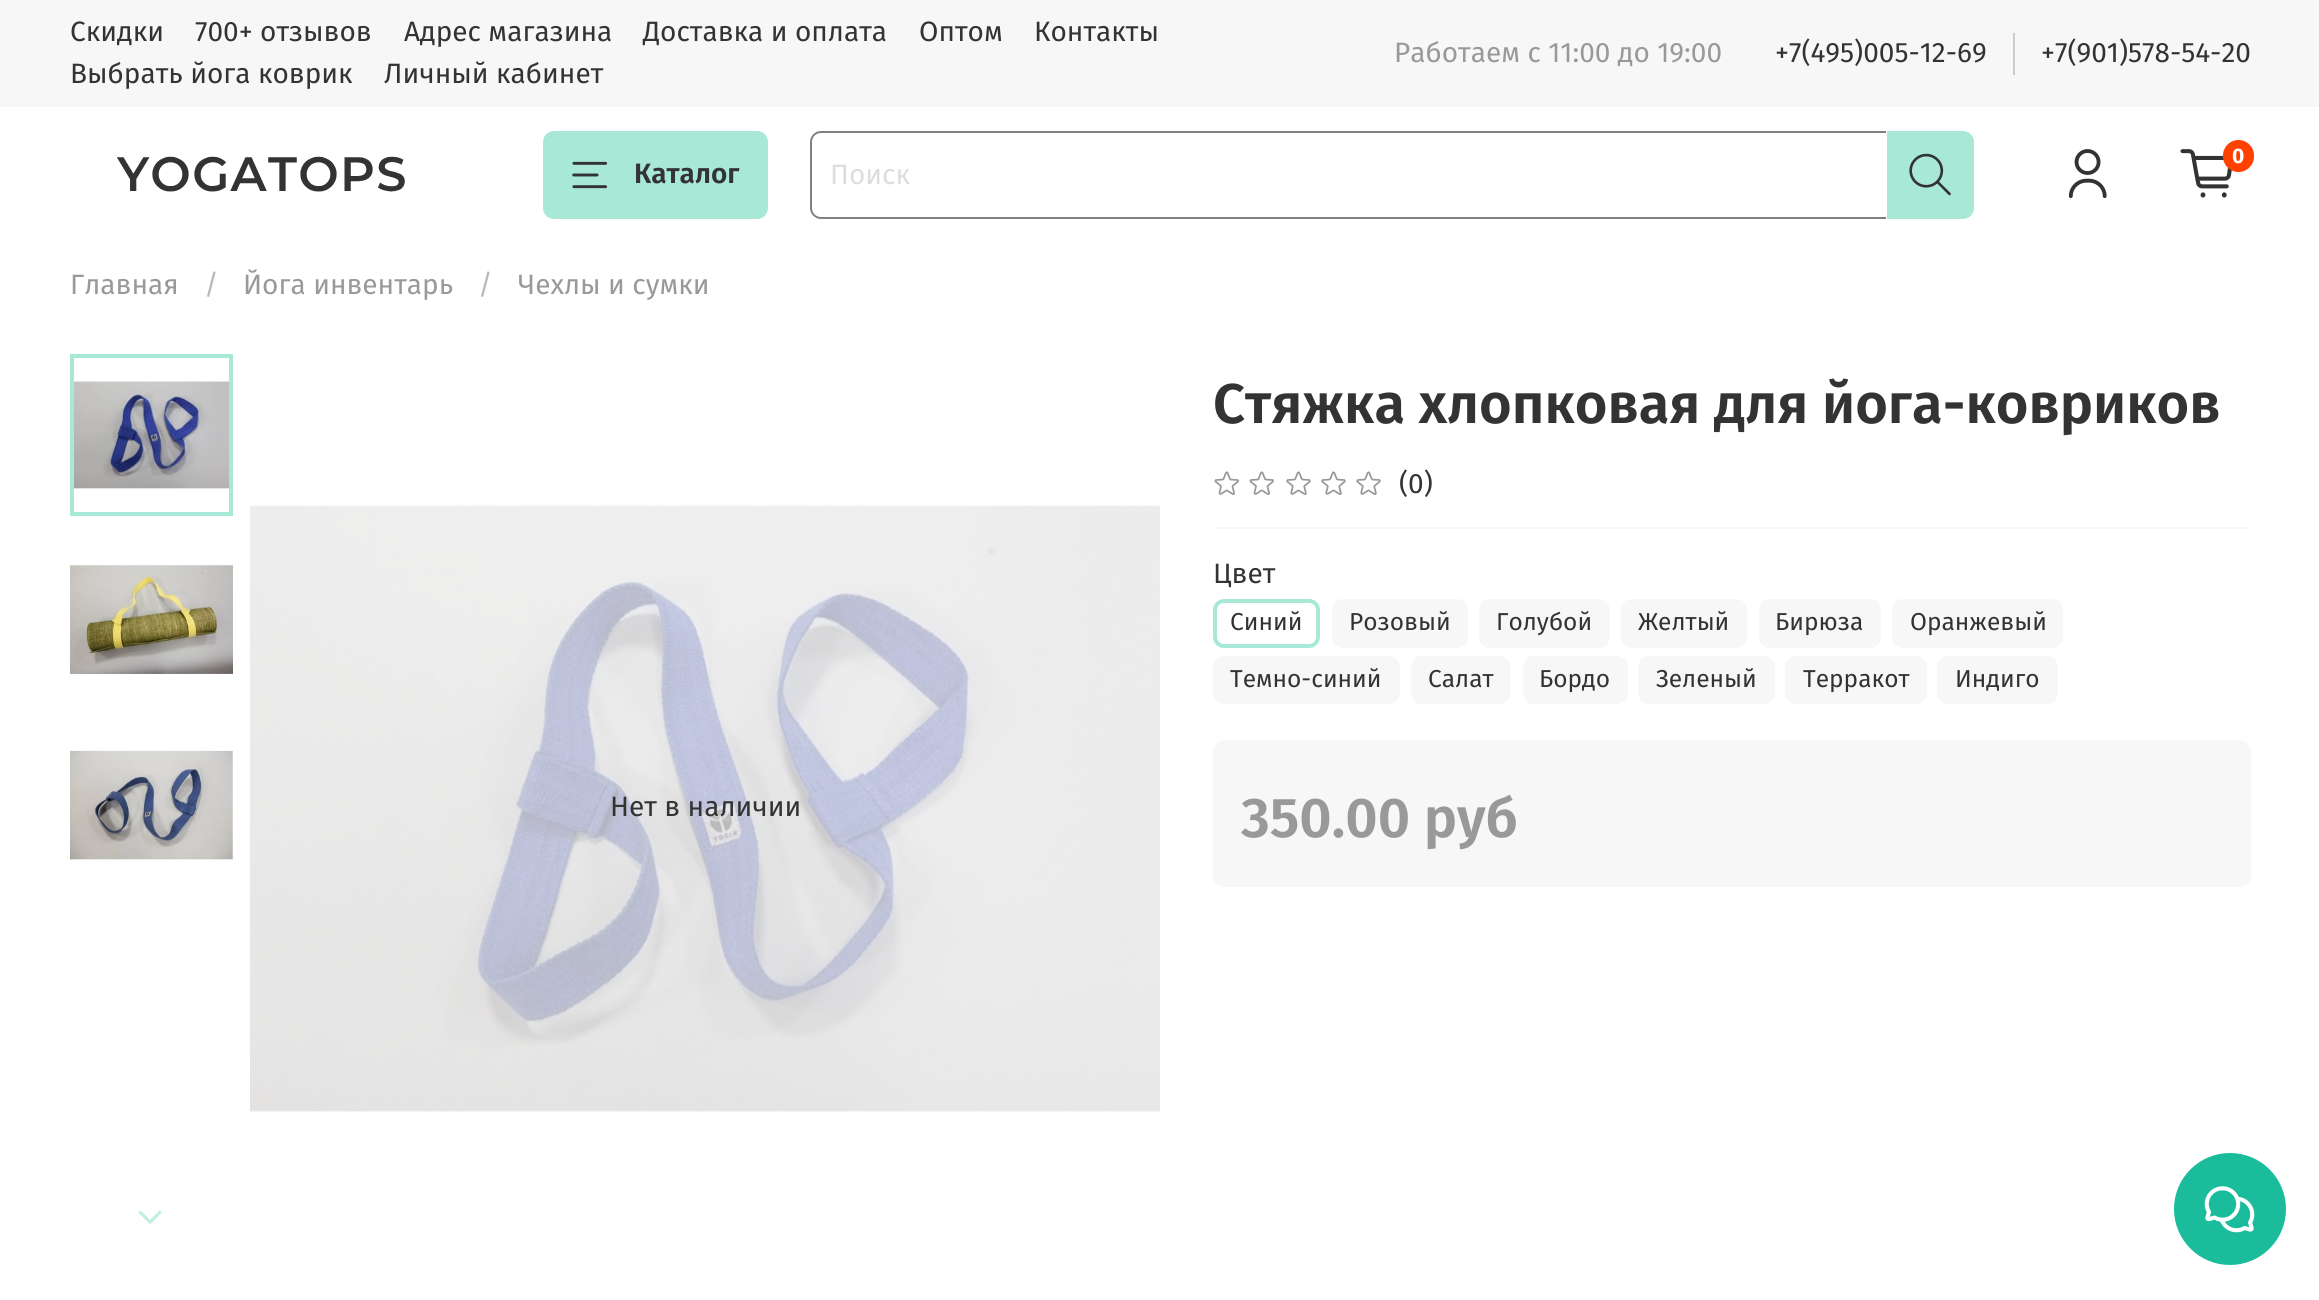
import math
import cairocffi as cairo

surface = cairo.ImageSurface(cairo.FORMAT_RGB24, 2319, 1300)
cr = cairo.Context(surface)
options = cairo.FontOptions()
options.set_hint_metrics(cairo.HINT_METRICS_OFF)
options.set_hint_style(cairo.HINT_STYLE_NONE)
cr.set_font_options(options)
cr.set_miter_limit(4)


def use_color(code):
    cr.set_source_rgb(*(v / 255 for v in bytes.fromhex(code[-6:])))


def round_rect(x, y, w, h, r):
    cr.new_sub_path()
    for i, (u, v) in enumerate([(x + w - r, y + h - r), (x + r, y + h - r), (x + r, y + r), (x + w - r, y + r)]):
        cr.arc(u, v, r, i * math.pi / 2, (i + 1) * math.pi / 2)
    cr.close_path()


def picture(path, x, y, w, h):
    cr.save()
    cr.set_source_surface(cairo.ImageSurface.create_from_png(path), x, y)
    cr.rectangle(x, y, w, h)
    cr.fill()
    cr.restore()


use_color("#ffffff")
cr.paint()
use_color("#f7f7f7")
cr.rectangle(0, 0, 2319, 107)
cr.fill()
cr.select_font_face("Fira Sans")
cr.set_font_size(28)
use_color("#333333")
cr.move_to(70, 41)
cr.show_text("Скидки")
cr.move_to(195, 41)
cr.show_text("700+ отзывов")
cr.move_to(404, 41)
cr.show_text("Адрес магазина")
cr.move_to(643, 41)
cr.show_text("Доставка и оплата")
cr.move_to(919, 41)
cr.show_text("Оптом")
cr.move_to(1034, 41)
cr.show_text("Контакты")
cr.move_to(70, 83)
cr.show_text("Выбрать йога коврик")
cr.move_to(384, 83)
cr.show_text("Личный кабинет")
use_color("#999999")
cr.move_to(1394, 62)
cr.show_text("Работаем с 11:00 до 19:00")
use_color("#cccccc")
cr.rectangle(2013, 33, 2, 42)
cr.fill()
use_color("#333333")
cr.move_to(1775, 62)
cr.show_text("+7(495)005-12-69")
cr.move_to(2041, 62)
cr.show_text("+7(901)578-54-20")
picture("img1.png", 117, 156, 288, 36)
use_color("#a7e8d6")
round_rect(543, 131, 225, 88, 11)
cr.fill()
picture("img2.png", 572, 161, 35, 28)
cr.select_font_face("Fira Sans SemiBold")
use_color("#333333")
cr.move_to(634, 183)
cr.show_text("Каталог")
use_color("#808080")
cr.set_fill_rule(cairo.FILL_RULE_EVEN_ODD)
cr.new_path()
cr.move_to(821, 131)
cr.line_to(1886, 131)
cr.line_to(1886, 219)
cr.line_to(821, 219)
cr.curve_to(815, 219, 810, 214, 810, 208)
cr.line_to(810, 142)
cr.curve_to(810, 136, 815, 131, 821, 131)
cr.close_path()
cr.move_to(821, 133)
cr.line_to(1886, 133)
cr.line_to(1886, 217)
cr.line_to(821, 217)
cr.curve_to(816, 217, 812, 213, 812, 208)
cr.line_to(812, 142)
cr.curve_to(812, 137, 816, 133, 821, 133)
cr.close_path()
cr.fill()
cr.select_font_face("Fira Sans")
use_color("#dddddd")
cr.move_to(830, 184)
cr.show_text("Поиск")
use_color("#a7e8d6")
cr.new_path()
cr.move_to(1887, 131)
cr.line_to(1963, 131)
cr.curve_to(1969, 131, 1974, 136, 1974, 142)
cr.line_to(1974, 208)
cr.curve_to(1974, 214, 1969, 219, 1963, 219)
cr.line_to(1887, 219)
cr.close_path()
cr.fill()
picture("img3.png", 1909, 153, 42, 43)
picture("img4.png", 2068, 149, 39, 50)
picture("img5.png", 2180, 149, 52, 49)
use_color("#ff4100")
round_rect(2223, 140, 31, 32, 15.5)
cr.fill()
cr.select_font_face("Fira Sans", cairo.FONT_SLANT_NORMAL, cairo.FONT_WEIGHT_BOLD)
cr.set_font_size(21)
use_color("#ffffff")
cr.move_to(2232, 163)
cr.show_text("0")
cr.select_font_face("Fira Sans")
cr.set_font_size(28)
use_color("#999999")
cr.move_to(70, 294)
cr.show_text("Главная")
use_color("#b8b8b8")
cr.move_to(204, 294)
cr.show_text("/")
use_color("#999999")
cr.move_to(243, 294)
cr.show_text("Йога инвентарь")
use_color("#b8b8b8")
cr.move_to(478, 294)
cr.show_text("/")
use_color("#999999")
cr.move_to(518, 294)
cr.show_text("Чехлы и сумки")
cr.select_font_face("Fira Sans SemiBold")
cr.set_font_size(56)
use_color("#333333")
cr.move_to(1213, 423)
cr.show_text("Стяжка хлопковая для йога-ковриков")
use_color("#f7f7f7")
cr.rectangle(1213, 527, 1038, 2)
cr.fill()
picture("img6.png", 1214, 471, 25, 24)
picture("img6.png", 1249, 471, 25, 24)
picture("img7.png", 1286, 471, 25, 24)
picture("img7.png", 1321, 471, 25, 24)
picture("img7.png", 1356, 471, 25, 24)
cr.select_font_face("Fira Sans")
cr.set_font_size(28)
use_color("#333333")
cr.move_to(1399, 493)
cr.show_text("(0)")
cr.move_to(1213, 583)
cr.show_text("Цвет")
round_rect(1215, 601, 103, 45, 9)
use_color("#a7e8d6")
cr.set_line_width(4)
cr.stroke()
cr.set_font_size(24.5)
use_color("#333333")
cr.move_to(1230, 630)
cr.show_text("Синий")
use_color("#f7f7f7")
round_rect(1332, 599, 136, 49, 11)
cr.fill()
use_color("#333333")
cr.move_to(1349, 630)
cr.show_text("Розовый")
use_color("#f7f7f7")
round_rect(1479, 599, 131, 49, 11)
cr.fill()
use_color("#333333")
cr.move_to(1496, 630)
cr.show_text("Голубой")
use_color("#f7f7f7")
round_rect(1621, 599, 126, 49, 11)
cr.fill()
use_color("#333333")
cr.move_to(1638, 630)
cr.show_text("Желтый")
use_color("#f7f7f7")
round_rect(1759, 599, 122, 49, 11)
cr.fill()
use_color("#333333")
cr.move_to(1775, 630)
cr.show_text("Бирюза")
use_color("#f7f7f7")
round_rect(1892, 599, 171, 49, 11)
cr.fill()
use_color("#333333")
cr.move_to(1910, 630)
cr.show_text("Оранжевый")
use_color("#f7f7f7")
round_rect(1213, 656, 187, 48, 11)
cr.fill()
use_color("#333333")
cr.move_to(1230, 687)
cr.show_text("Темно-синий")
use_color("#f7f7f7")
round_rect(1411, 656, 99, 48, 11)
cr.fill()
use_color("#333333")
cr.move_to(1428, 687)
cr.show_text("Салат")
use_color("#f7f7f7")
round_rect(1523, 656, 105, 48, 11)
cr.fill()
use_color("#333333")
cr.move_to(1539, 687)
cr.show_text("Бордо")
use_color("#f7f7f7")
round_rect(1638, 656, 137, 48, 11)
cr.fill()
use_color("#333333")
cr.move_to(1656, 687)
cr.show_text("Зеленый")
use_color("#f7f7f7")
round_rect(1785, 656, 142, 48, 11)
cr.fill()
use_color("#333333")
cr.move_to(1803, 687)
cr.show_text("Терракот")
use_color("#f7f7f7")
round_rect(1937, 656, 121, 48, 11)
cr.fill()
use_color("#333333")
cr.move_to(1955, 687)
cr.show_text("Индиго")
picture("img8.png", 74, 381, 155, 108)
cr.rectangle(72, 356, 159, 158)
use_color("#a7e8d6")
cr.stroke()
picture("img9.png", 70, 565, 163, 109)
picture("img10.png", 70, 750, 163, 110)
picture("img11.png", 138, 1210, 24, 14)
picture("img12.png", 250, 505, 910, 607)
cr.set_font_size(28)
use_color("#333333")
cr.move_to(610, 816)
cr.show_text("Нет в наличии")
use_color("#f7f7f7")
round_rect(1213, 740, 1038, 147, 11)
cr.fill()
cr.select_font_face("Fira Sans SemiBold")
cr.set_font_size(56)
use_color("#999999")
cr.move_to(1241, 837)
cr.show_text("350.00 руб")
use_color("#1abc9c")
cr.new_path()
cr.arc(2230, 1209, 56, 0, 2 * math.pi)
cr.fill()
picture("img13.png", 2204, 1186, 51, 47)
surface.write_to_png("result.png")
